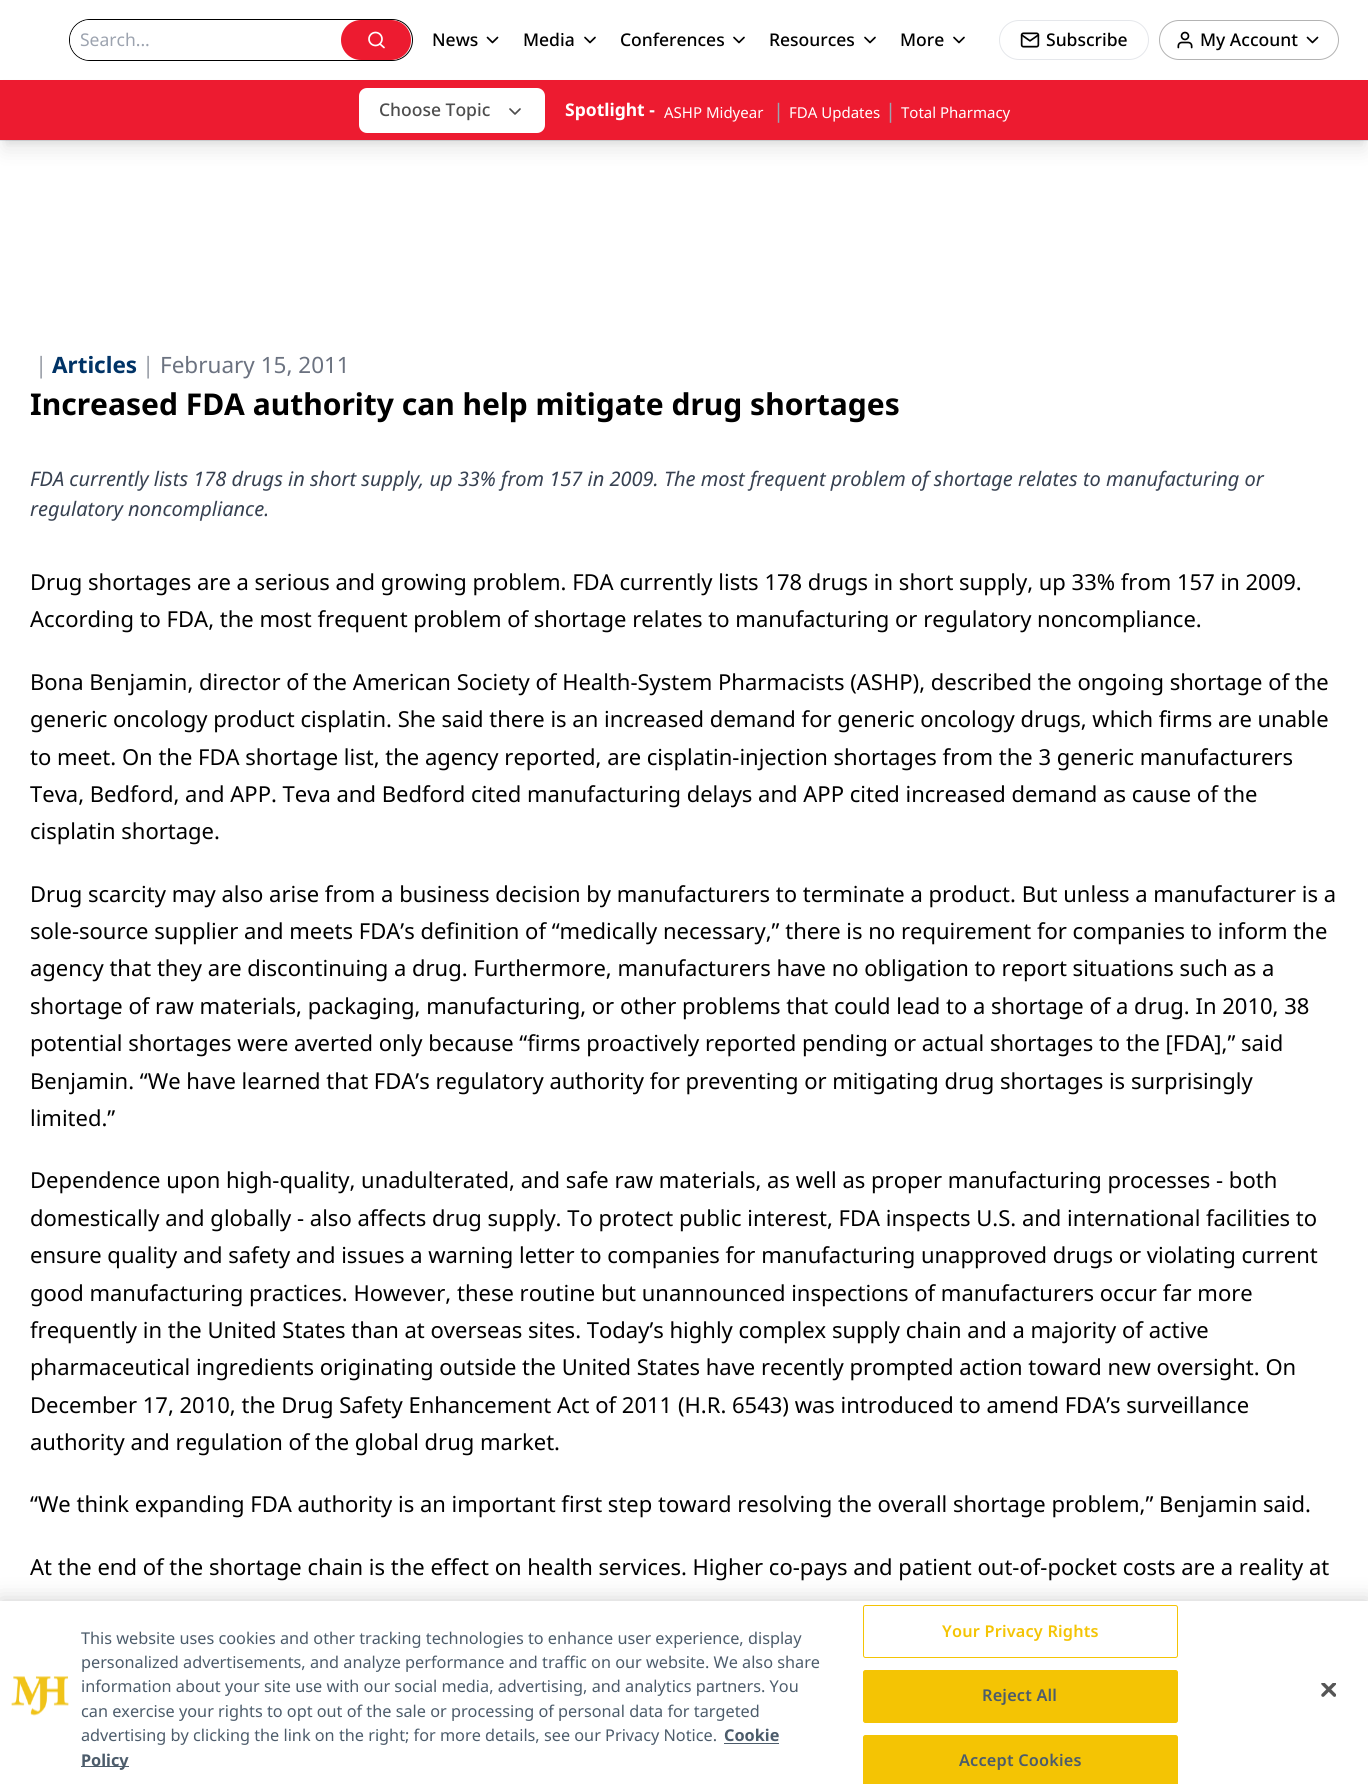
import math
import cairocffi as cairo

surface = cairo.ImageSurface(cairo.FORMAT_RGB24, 1368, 1784)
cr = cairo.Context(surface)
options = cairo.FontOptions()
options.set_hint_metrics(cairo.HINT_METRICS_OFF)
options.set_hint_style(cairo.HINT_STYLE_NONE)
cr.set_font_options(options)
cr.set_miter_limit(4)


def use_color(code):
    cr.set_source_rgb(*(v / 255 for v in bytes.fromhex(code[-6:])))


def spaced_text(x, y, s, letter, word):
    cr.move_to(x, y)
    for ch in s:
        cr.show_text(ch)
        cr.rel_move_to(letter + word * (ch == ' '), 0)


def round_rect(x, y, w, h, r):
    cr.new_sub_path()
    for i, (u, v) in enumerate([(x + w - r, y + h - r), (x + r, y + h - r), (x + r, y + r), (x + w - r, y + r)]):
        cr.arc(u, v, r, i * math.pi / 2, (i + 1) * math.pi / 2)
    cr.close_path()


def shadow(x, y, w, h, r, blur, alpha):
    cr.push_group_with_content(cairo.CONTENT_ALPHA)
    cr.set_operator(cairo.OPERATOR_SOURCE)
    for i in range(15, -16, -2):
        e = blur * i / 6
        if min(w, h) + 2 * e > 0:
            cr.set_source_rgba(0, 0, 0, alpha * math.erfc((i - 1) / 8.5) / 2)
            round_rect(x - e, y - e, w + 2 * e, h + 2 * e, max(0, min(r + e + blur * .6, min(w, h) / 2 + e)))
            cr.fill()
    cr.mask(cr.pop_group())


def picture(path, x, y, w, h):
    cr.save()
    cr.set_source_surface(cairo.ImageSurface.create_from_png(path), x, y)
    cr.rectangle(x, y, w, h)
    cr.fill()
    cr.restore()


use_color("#ffffff")
cr.paint()
use_color("#e5e7eb")
cr.rectangle(0, 140, 1368, 1)
cr.fill()
round_rect(69.5, 19.5, 343, 41, 20.5)
use_color("#000000")
cr.set_line_width(1)
cr.stroke()
use_color("#ffffff")
round_rect(70, 20, 341, 40, 20)
cr.fill()
cr.select_font_face("Noto Sans")
cr.set_font_size(17.5)
use_color("#9ca3af")
cr.move_to(80, 46)
cr.show_text("Search...")
use_color("#ed1b30")
round_rect(341, 20, 70, 40, 20)
cr.fill()
cr.arc(375.5, 39, 6.5, 0, 2 * math.pi)
use_color("#ffffff")
cr.set_line_width(1.7)
cr.stroke()
cr.new_path()
cr.move_to(384, 47.5)
cr.line_to(380, 44)
cr.set_line_cap(cairo.LINE_CAP_ROUND)
cr.set_line_join(cairo.LINE_JOIN_ROUND)
cr.stroke()
cr.select_font_face("Noto Sans Medium")
use_color("#000000")
cr.move_to(432, 46)
cr.show_text("News")
cr.new_path()
cr.move_to(487.5, 37.5)
cr.line_to(492.5, 42.5)
cr.line_to(497.5, 37.5)
cr.stroke()
cr.move_to(523, 46)
cr.show_text("Media")
cr.new_path()
cr.move_to(585, 37.5)
cr.line_to(590, 42.5)
cr.line_to(595, 37.5)
cr.stroke()
cr.move_to(620, 46)
cr.show_text("Conferences")
cr.new_path()
cr.move_to(734, 37.5)
cr.line_to(739, 42.5)
cr.line_to(744, 37.5)
cr.stroke()
cr.move_to(769, 46)
cr.show_text("Resources")
cr.new_path()
cr.move_to(865, 37.5)
cr.line_to(870, 42.5)
cr.line_to(875, 37.5)
cr.stroke()
cr.move_to(900, 46)
cr.show_text("More")
cr.new_path()
cr.move_to(954, 37.5)
cr.line_to(959, 42.5)
cr.line_to(964, 37.5)
cr.stroke()
round_rect(999.5, 20.5, 149, 39, 19.5)
use_color("#e5e7eb")
cr.set_line_width(1)
cr.set_line_cap(cairo.LINE_CAP_BUTT)
cr.set_line_join(cairo.LINE_JOIN_MITER)
cr.stroke()
picture("img1.png", 1020, 32, 20, 16)
use_color("#000000")
cr.move_to(1046, 46)
cr.show_text("Subscribe")
round_rect(1159.5, 20.5, 179, 39, 19.5)
use_color("#b3b3b3")
cr.stroke()
picture("img2.png", 1177, 31, 16, 18)
use_color("#000000")
cr.move_to(1200, 46)
cr.show_text("My Account")
cr.new_path()
cr.move_to(1307.5, 37.5)
cr.line_to(1312.5, 42.5)
cr.line_to(1317.5, 37.5)
cr.set_line_width(1.7)
cr.set_line_cap(cairo.LINE_CAP_ROUND)
cr.set_line_join(cairo.LINE_JOIN_ROUND)
cr.stroke()
use_color("#000000")
shadow(5, 90, 1359, 50, 0, 4, 0.1)
shadow(4, 96, 1361, 53, 0, 9.5, 0.1)
use_color("#ed1b30")
cr.rectangle(0, 80, 1368, 60)
cr.fill()
use_color("#ffffff")
round_rect(359, 88, 186, 45, 8)
cr.fill()
use_color("#4d4d4d")
cr.move_to(379, 116)
cr.show_text("Choose Topic")
cr.new_path()
cr.move_to(510, 109)
cr.line_to(515, 114)
cr.line_to(520, 109)
cr.stroke()
cr.select_font_face("Noto Sans", cairo.FONT_SLANT_NORMAL, cairo.FONT_WEIGHT_BOLD)
use_color("#ffffff")
cr.move_to(565, 116)
cr.show_text("Spotlight -")
cr.select_font_face("Noto Sans")
cr.set_font_size(15)
cr.move_to(664, 118)
cr.show_text("ASHP Midyear")
cr.set_font_size(20)
use_color("#9ca3af")
cr.move_to(773, 118)
cr.show_text("|")
cr.set_font_size(15)
use_color("#ffffff")
cr.move_to(789, 118)
cr.show_text("FDA Updates")
cr.set_font_size(20)
use_color("#9ca3af")
cr.move_to(885, 118)
cr.show_text("|")
cr.set_font_size(15)
use_color("#ffffff")
cr.move_to(901, 118)
cr.show_text("Total Pharmacy")
cr.select_font_face("Noto Sans Light")
cr.set_font_size(22.5)
use_color("#6b7280")
cr.move_to(35, 373)
cr.show_text("|")
cr.select_font_face("Noto Sans", cairo.FONT_SLANT_NORMAL, cairo.FONT_WEIGHT_BOLD)
use_color("#003366")
cr.move_to(52, 373)
cr.show_text("Articles")
cr.select_font_face("Noto Sans Light")
use_color("#6b7280")
cr.move_to(142, 373)
cr.show_text("|")
cr.select_font_face("Noto Sans")
cr.move_to(160, 373)
cr.show_text("February 15, 2011")
cr.select_font_face("Noto Sans", cairo.FONT_SLANT_NORMAL, cairo.FONT_WEIGHT_BOLD)
cr.set_font_size(30)
use_color("#000000")
cr.move_to(30, 415)
cr.show_text("Increased FDA authority can help mitigate drug shortages")
cr.select_font_face("Noto Sans", cairo.FONT_SLANT_ITALIC)
cr.set_font_size(20)
use_color("#374151")
cr.move_to(30, 486)
cr.show_text("FDA currently lists 178 drugs in short supply, up 33% from 157 in 2009. The most frequent problem of shortage relates to manufacturing or")
cr.move_to(30, 516)
cr.show_text("regulatory noncompliance.")
cr.select_font_face("Noto Sans")
cr.set_font_size(22)
use_color("#000000")
cr.move_to(30, 590)
cr.show_text("Drug shortages are a serious and growing problem. FDA currently lists 178 drugs in short supply, up 33% from 157 in 2009.")
cr.move_to(30, 627)
cr.show_text("According to FDA, the most frequent problem of shortage relates to manufacturing or regulatory noncompliance.")
cr.move_to(30, 690)
cr.show_text("Bona Benjamin, director of the American Society of Health-System Pharmacists (ASHP), described the ongoing shortage of the")
cr.move_to(30, 727)
cr.show_text("generic oncology product cisplatin. She said there is an increased demand for generic oncology drugs, which firms are unable")
cr.move_to(30, 765)
cr.show_text("to meet. On the FDA shortage list, the agency reported, are cisplatin-injection shortages from the 3 generic manufacturers")
cr.move_to(30, 802)
cr.show_text("Teva, Bedford, and APP. Teva and Bedford cited manufacturing delays and APP cited increased demand as cause of the")
cr.move_to(30, 839)
cr.show_text("cisplatin shortage.")
cr.move_to(30, 902)
cr.show_text("Drug scarcity may also arise from a business decision by manufacturers to terminate a product. But unless a manufacturer is a")
cr.move_to(30, 939)
cr.show_text("sole-source supplier and meets FDA’s definition of “medically necessary,” there is no requirement for companies to inform the")
cr.move_to(30, 976)
cr.show_text("agency that they are discontinuing a drug. Furthermore, manufacturers have no obligation to report situations such as a")
cr.move_to(30, 1014)
cr.show_text("shortage of raw materials, packaging, manufacturing, or other problems that could lead to a shortage of a drug. In 2010, 38")
cr.move_to(30, 1051)
cr.show_text("potential shortages were averted only because “firms proactively reported pending or actual shortages to the [FDA],” said")
cr.move_to(30, 1089)
cr.show_text("Benjamin. “We have learned that FDA’s regulatory authority for preventing or mitigating drug shortages is surprisingly")
cr.move_to(30, 1126)
cr.show_text("limited.”")
cr.move_to(30, 1188)
cr.show_text("Dependence upon high-quality, unadulterated, and safe raw materials, as well as proper manufacturing processes - both")
cr.move_to(30, 1226)
cr.show_text("domestically and globally - also affects drug supply. To protect public interest, FDA inspects U.S. and international facilities to")
cr.move_to(30, 1263)
cr.show_text("ensure quality and safety and issues a warning letter to companies for manufacturing unapproved drugs or violating current")
cr.move_to(30, 1301)
cr.show_text("good manufacturing practices. However, these routine but unannounced inspections of manufacturers occur far more")
cr.move_to(30, 1338)
cr.show_text("frequently in the United States than at overseas sites. Today’s highly complex supply chain and a majority of active")
cr.move_to(30, 1375)
cr.show_text("pharmaceutical ingredients originating outside the United States have recently prompted action toward new oversight. On")
cr.move_to(30, 1413)
cr.show_text("December 17, 2010, the Drug Safety Enhancement Act of 2011 (H.R. 6543) was introduced to amend FDA’s surveillance")
cr.move_to(30, 1450)
cr.show_text("authority and regulation of the global drug market.")
cr.move_to(30, 1512)
cr.show_text("“We think expanding FDA authority is an important first step toward resolving the overall shortage problem,” Benjamin said.")
cr.move_to(30, 1575)
cr.show_text("At the end of the shortage chain is the effect on health services. Higher co-pays and patient out-of-pocket costs are a reality at")
use_color("#000000")
shadow(0, 1601, 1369, 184, 0, 11, 0.2)
use_color("#ffffff")
cr.rectangle(0, 1601, 1368, 183)
cr.fill()
picture("img3.png", 11, 1676, 58, 40)
cr.set_font_size(16.25)
use_color("#4c5c6b")
cr.move_to(81, 1644)
cr.show_text("This website uses cookies and other tracking technologies to enhance user experience, display")
cr.move_to(81, 1668)
cr.show_text("personalized advertisements, and analyze performance and traffic on our website. We also share")
cr.move_to(81, 1692)
cr.show_text("information about your site use with our social media, advertising, and analytics partners. You")
cr.move_to(81, 1717)
cr.show_text("can exercise your rights to opt out of the sale or processing of personal data for targeted")
cr.move_to(81, 1741)
cr.show_text("advertising by clicking the link on the right; for more details, see our Privacy Notice.")
cr.select_font_face("Noto Sans", cairo.FONT_SLANT_NORMAL, cairo.FONT_WEIGHT_BOLD)
cr.move_to(724, 1741)
cr.show_text("Cookie")
cr.rectangle(724, 1743, 55, 1)
cr.fill()
cr.rectangle(81, 1766, 48, 1)
cr.fill()
cr.move_to(81, 1766)
cr.show_text("Policy")
round_rect(863.5, 1605.5, 314, 52, 2)
use_color("#f4c404")
cr.set_line_width(1)
cr.set_line_cap(cairo.LINE_CAP_BUTT)
cr.set_line_join(cairo.LINE_JOIN_MITER)
cr.stroke()
cr.select_font_face("Noto Sans SemiBold")
spaced_text(942, 1637, "Your Privacy Rights", 0.2, 0)
round_rect(863.5, 1670.5, 314, 52, 2)
cr.fill_preserve()
cr.stroke()
use_color("#4c5c6b")
spaced_text(982, 1701, "Reject All", 0.2, 0)
use_color("#f4c404")
round_rect(863.5, 1735.5, 314, 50, 2)
cr.fill_preserve()
cr.stroke()
use_color("#4c5c6b")
spaced_text(959, 1766, "Accept Cookies", 0.2, 0)
picture("img4.png", 1321, 1683, 15, 14)
surface.write_to_png("result.png")
